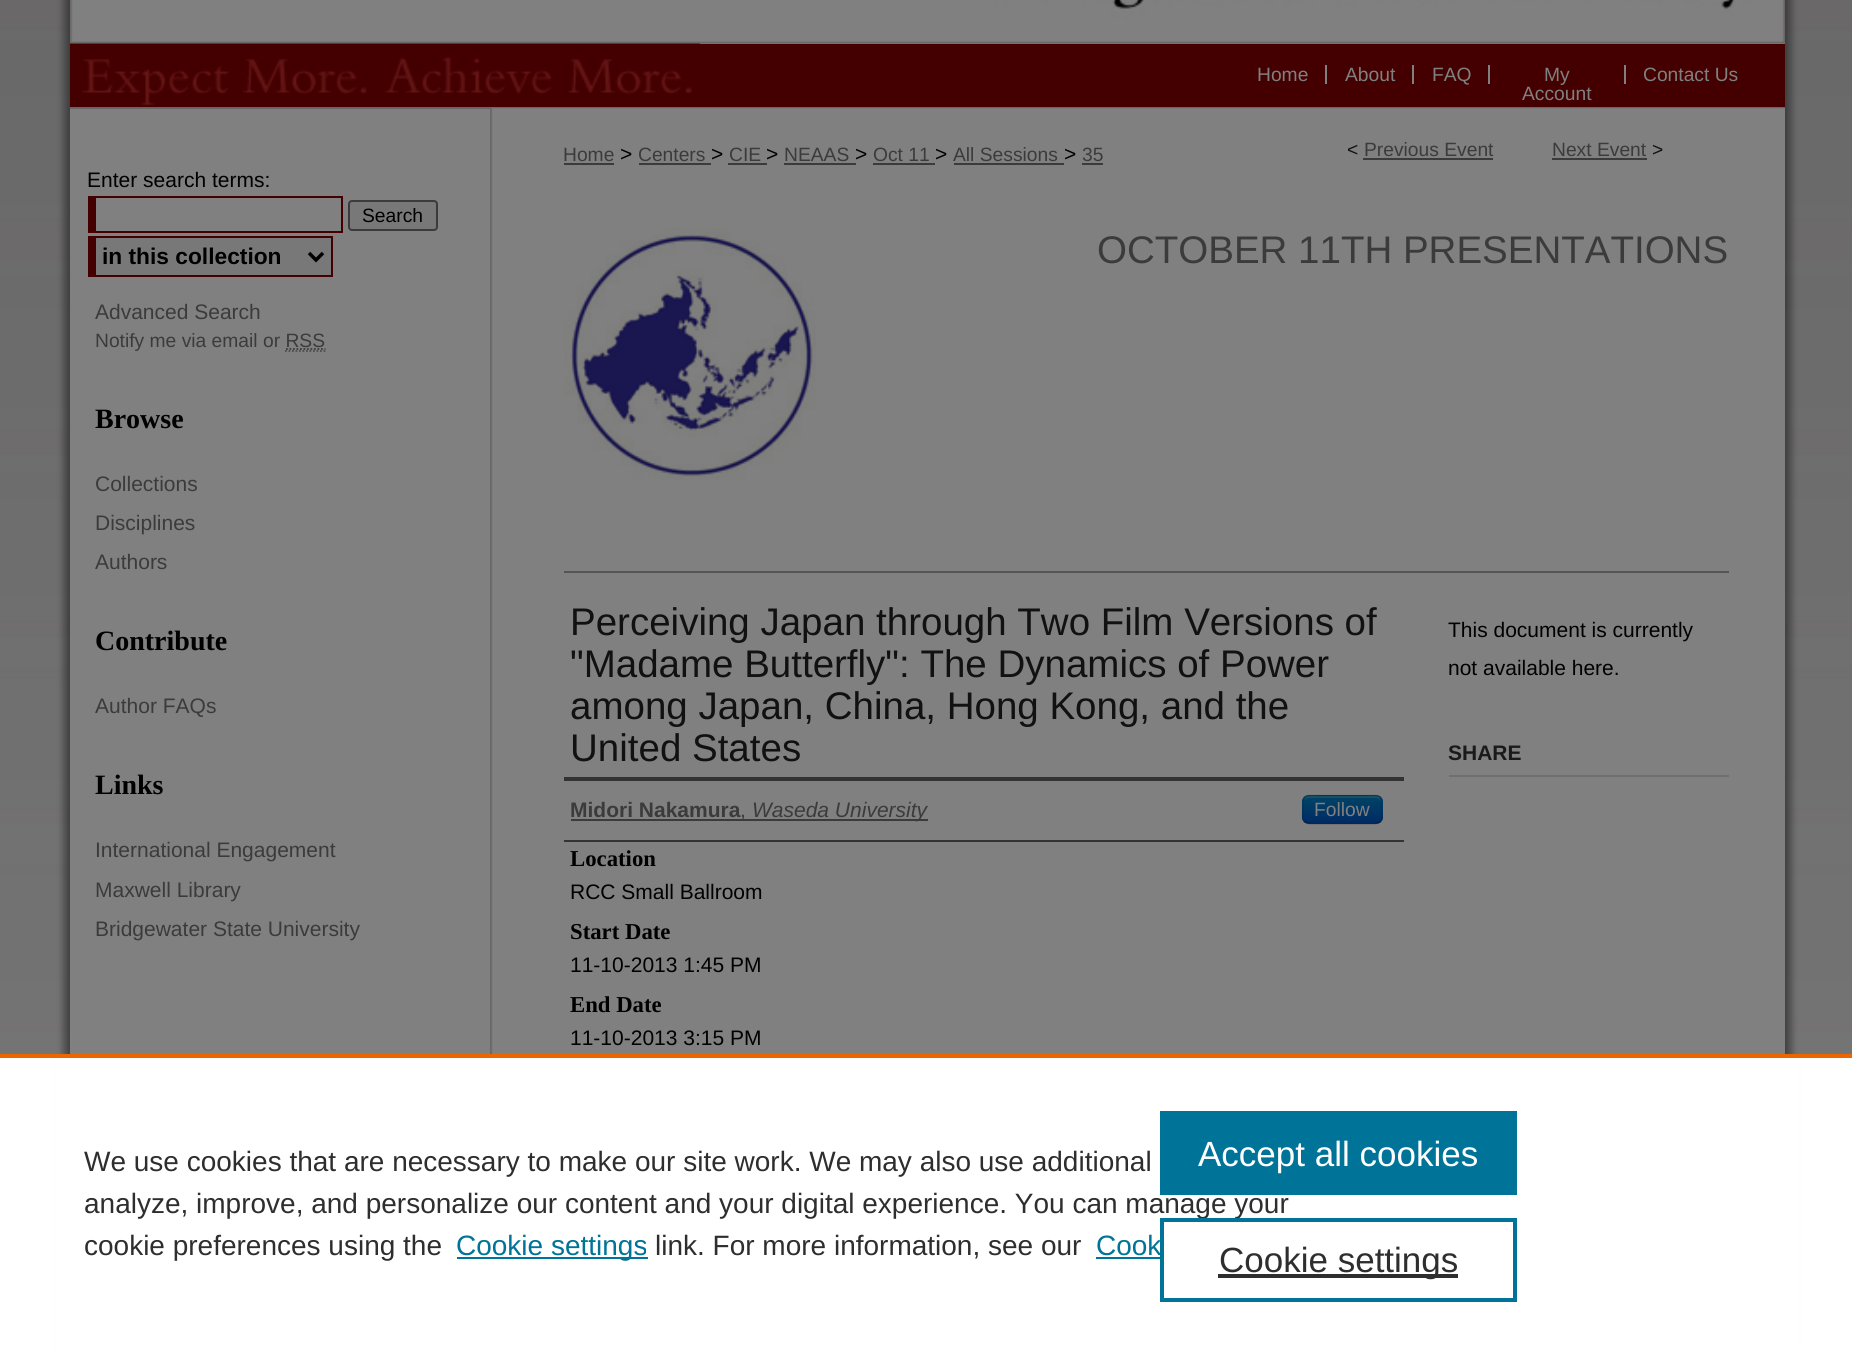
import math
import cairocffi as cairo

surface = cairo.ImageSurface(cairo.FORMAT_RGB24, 1852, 1351)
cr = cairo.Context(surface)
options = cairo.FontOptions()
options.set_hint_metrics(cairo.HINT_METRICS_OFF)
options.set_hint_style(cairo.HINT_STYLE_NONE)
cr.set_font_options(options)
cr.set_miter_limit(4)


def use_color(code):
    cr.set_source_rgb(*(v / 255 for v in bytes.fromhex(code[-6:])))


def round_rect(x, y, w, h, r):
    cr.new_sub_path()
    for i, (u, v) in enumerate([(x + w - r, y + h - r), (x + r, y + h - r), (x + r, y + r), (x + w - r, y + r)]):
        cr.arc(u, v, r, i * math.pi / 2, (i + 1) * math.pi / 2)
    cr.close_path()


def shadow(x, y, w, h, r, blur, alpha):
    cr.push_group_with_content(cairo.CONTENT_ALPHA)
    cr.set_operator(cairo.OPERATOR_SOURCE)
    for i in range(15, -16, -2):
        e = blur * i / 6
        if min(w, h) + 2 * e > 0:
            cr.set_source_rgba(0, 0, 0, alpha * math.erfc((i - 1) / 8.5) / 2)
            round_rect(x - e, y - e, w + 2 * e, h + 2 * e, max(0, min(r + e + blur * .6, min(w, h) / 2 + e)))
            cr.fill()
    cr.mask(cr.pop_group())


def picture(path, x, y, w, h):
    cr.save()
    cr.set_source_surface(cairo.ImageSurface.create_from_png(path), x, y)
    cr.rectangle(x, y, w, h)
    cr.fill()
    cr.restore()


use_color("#ffffff")
cr.paint()
picture("img1.png", 0, 0, 1852, 1054)
use_color("#252525")
shadow(70, -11, 1715, 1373, 0, 3.5, 0.5)
shadow(63, -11, 1715, 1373, 0, 3.5, 0.5)
shadow(77, -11, 1715, 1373, 0, 3.5, 0.5)
use_color("#808080")
cr.rectangle(70, 43, 1715, 1)
cr.fill()
picture("img2.png", 70, 0, 1715, 44)
use_color("#440000")
cr.rectangle(70, 44, 1715, 63)
cr.fill()
picture("img3.png", 70, 43, 630, 63)
use_color("#686767")
cr.rectangle(70, 107, 1715, 2)
cr.fill()
cr.select_font_face("Liberation Sans")
cr.set_font_size(19.25)
use_color("#808080")
cr.move_to(1257, 81)
cr.show_text("Home")
cr.rectangle(1325, 65, 2, 19)
cr.fill()
cr.move_to(1345, 81)
cr.show_text("About")
cr.rectangle(1412, 65, 2, 19)
cr.fill()
cr.move_to(1432, 81)
cr.show_text("FAQ")
cr.rectangle(1488, 65, 2, 19)
cr.fill()
cr.move_to(1544, 81)
cr.show_text("My")
cr.move_to(1522, 100)
cr.show_text("Account")
cr.rectangle(1624, 65, 2, 19)
cr.fill()
cr.move_to(1643, 81)
cr.show_text("Contact Us")
cr.rectangle(70, 109, 420, 945)
cr.fill()
picture("img4.png", 490, 108, 1295, 946)
cr.set_font_size(21)
use_color("#000000")
cr.move_to(87, 187)
cr.show_text("Enter search terms:")
use_color("#440000")
cr.rectangle(88, 196, 255, 2)
cr.fill()
cr.rectangle(341, 196, 2, 37)
cr.fill()
cr.rectangle(88, 231, 255, 2)
cr.fill()
cr.rectangle(88, 196, 8, 37)
cr.fill()
use_color("#787878")
round_rect(349, 201, 88, 29, 3)
cr.fill_preserve()
use_color("#3b3b3b")
cr.stroke()
cr.set_font_size(19.25)
use_color("#000000")
cr.move_to(362, 222)
cr.show_text("Search")
use_color("#787878")
cr.rectangle(96, 238, 235, 37)
cr.fill()
use_color("#440000")
cr.rectangle(88, 236, 245, 2)
cr.fill()
cr.rectangle(331, 236, 2, 41)
cr.fill()
cr.rectangle(88, 275, 245, 2)
cr.fill()
cr.rectangle(88, 236, 8, 41)
cr.fill()
cr.new_path()
cr.move_to(309, 253)
cr.line_to(316, 260)
cr.line_to(323, 253)
use_color("#000000")
cr.set_line_width(3.5)
cr.stroke()
cr.select_font_face("Liberation Sans", cairo.FONT_SLANT_NORMAL, cairo.FONT_WEIGHT_BOLD)
cr.set_font_size(22.75)
cr.move_to(102, 264)
cr.show_text("in this collection")
cr.select_font_face("Liberation Sans")
cr.set_font_size(21)
use_color("#3b3b3b")
cr.move_to(95, 319)
cr.show_text("Advanced Search")
cr.set_font_size(19.25)
cr.move_to(95, 347)
cr.show_text("Notify me via email or RSS")
cr.new_path()
cr.move_to(286, 349)
cr.line_to(325.5, 349)
cr.set_line_width(1.8)
cr.set_dash([1.75, 1.75])
cr.stroke()
cr.new_path()
cr.move_to(285, 351)
cr.line_to(325.5, 351)
use_color("#4d4d4d")
cr.stroke()
cr.select_font_face("Liberation Serif", cairo.FONT_SLANT_NORMAL, cairo.FONT_WEIGHT_BOLD)
cr.set_font_size(28)
use_color("#000000")
cr.move_to(95, 428)
cr.show_text("Browse")
cr.select_font_face("Liberation Sans")
cr.set_font_size(21)
use_color("#3b3b3b")
cr.move_to(95, 491)
cr.show_text("Collections")
cr.move_to(95, 530)
cr.show_text("Disciplines")
cr.move_to(95, 569)
cr.show_text("Authors")
cr.select_font_face("Liberation Serif", cairo.FONT_SLANT_NORMAL, cairo.FONT_WEIGHT_BOLD)
cr.set_font_size(28)
use_color("#000000")
cr.move_to(95, 650)
cr.show_text("Contribute")
cr.select_font_face("Liberation Sans")
cr.set_font_size(21)
use_color("#3b3b3b")
cr.move_to(95, 713)
cr.show_text("Author FAQs")
cr.select_font_face("Liberation Serif", cairo.FONT_SLANT_NORMAL, cairo.FONT_WEIGHT_BOLD)
cr.set_font_size(28)
use_color("#000000")
cr.move_to(95, 794)
cr.show_text("Links")
cr.select_font_face("Liberation Sans")
cr.set_font_size(21)
use_color("#3b3b3b")
cr.move_to(95, 857)
cr.show_text("International Engagement")
cr.move_to(95, 897)
cr.show_text("Maxwell Library")
cr.move_to(95, 936)
cr.show_text("Bridgewater State University")
cr.set_font_size(19.25)
cr.move_to(563, 161)
cr.show_text("Home")
cr.rectangle(564, 163, 50, 2)
cr.fill()
cr.set_font_size(21)
use_color("#000000")
cr.move_to(620, 161)
cr.show_text(">")
cr.set_font_size(19.25)
use_color("#3b3b3b")
cr.move_to(638, 161)
cr.show_text("Centers")
cr.rectangle(639, 163, 72, 2)
cr.fill()
cr.set_font_size(21)
use_color("#000000")
cr.move_to(711, 161)
cr.show_text(">")
cr.set_font_size(19.25)
use_color("#3b3b3b")
cr.move_to(729, 161)
cr.show_text("CIE")
cr.rectangle(728, 163, 39, 2)
cr.fill()
cr.set_font_size(21)
use_color("#000000")
cr.move_to(766, 161)
cr.show_text(">")
cr.set_font_size(19.25)
use_color("#3b3b3b")
cr.move_to(784, 161)
cr.show_text("NEAAS")
cr.rectangle(784, 163, 72, 2)
cr.fill()
cr.set_font_size(21)
use_color("#000000")
cr.move_to(855, 161)
cr.show_text(">")
cr.set_font_size(19.25)
use_color("#3b3b3b")
cr.move_to(873, 161)
cr.show_text("Oct 11")
cr.rectangle(873, 163, 62, 2)
cr.fill()
cr.set_font_size(21)
use_color("#000000")
cr.move_to(935, 161)
cr.show_text(">")
cr.set_font_size(19.25)
use_color("#3b3b3b")
cr.move_to(953, 161)
cr.show_text("All Sessions")
cr.rectangle(954, 163, 110, 2)
cr.fill()
cr.set_font_size(21)
use_color("#000000")
cr.move_to(1064, 161)
cr.show_text(">")
cr.set_font_size(19.25)
use_color("#3b3b3b")
cr.move_to(1082, 161)
cr.show_text("35")
cr.rectangle(1082, 163, 21, 2)
cr.fill()
use_color("#111111")
cr.move_to(1347, 156)
cr.show_text("<")
use_color("#3b3b3b")
cr.move_to(1364, 156)
cr.show_text("Previous Event")
cr.rectangle(1363, 158, 130, 2)
cr.fill()
cr.move_to(1552, 156)
cr.show_text("Next Event")
cr.rectangle(1552, 158, 95, 2)
cr.fill()
use_color("#111111")
cr.move_to(1652, 156)
cr.show_text(">")
picture("img5.png", 564, 227, 252, 253)
cr.set_font_size(38.5)
use_color("#3b3b3b")
cr.move_to(1097, 263)
cr.show_text("OCTOBER 11TH PRESENTATIONS")
use_color("#555555")
cr.rectangle(564, 571, 1165, 2)
cr.fill()
use_color("#111111")
cr.move_to(570, 635)
cr.show_text("Perceiving Japan through Two Film Versions of")
cr.move_to(570, 677)
cr.show_text("\"Madame Butterfly\": The Dynamics of Power")
cr.move_to(570, 719)
cr.show_text("among Japan, China, Hong Kong, and the")
cr.move_to(570, 761)
cr.show_text("United States")
use_color("#333333")
cr.rectangle(564, 777, 840, 4)
cr.fill()
cr.rectangle(564, 840, 840, 2)
cr.fill()
cr.select_font_face("Liberation Sans", cairo.FONT_SLANT_NORMAL, cairo.FONT_WEIGHT_BOLD)
cr.set_font_size(21)
use_color("#3b3b3b")
cr.move_to(570, 817)
cr.show_text("Midori Nakamura")
cr.rectangle(571, 819, 357, 2)
cr.fill()
cr.select_font_face("Liberation Sans")
cr.move_to(740, 817)
cr.show_text(",")
cr.select_font_face("Liberation Sans", cairo.FONT_SLANT_ITALIC)
cr.move_to(752, 817)
cr.show_text("Waseda University")
use_color("#003a66")
round_rect(1302, 795, 81, 29, 7)
cr.fill()
cr.save()
round_rect(1302, 795, 81, 29, 7)
cr.clip()
gradient = cairo.LinearGradient(1342, 796, 1342, 823)
gradient.add_color_stop_rgba(0, 0, 0.267, 0.4, 1)
gradient.add_color_stop_rgba(1, 0, 0.169, 0.4, 1)
cr.set_source(gradient)
cr.rectangle(1302, 796, 81, 27)
cr.fill()
cr.restore()
cr.set_source_rgba(0.502, 0.502, 0.502, 0.2)
cr.new_path()
cr.move_to(1309, 798)
cr.line_to(1376, 798)
cr.curve_to(1378, 798, 1381, 800, 1381, 803)
cr.curve_to(1381, 793, 1373, 796, 1365, 796)
cr.line_to(1320, 796)
cr.curve_to(1312, 796, 1304, 793, 1304, 803)
cr.curve_to(1304, 800, 1306, 798, 1309, 798)
cr.close_path()
cr.fill()
cr.new_path()
cr.move_to(1380, 821.5)
cr.curve_to(1378.5, 822.5, 1377, 823.5, 1375.5, 823.5)
cr.line_to(1309, 823.5)
cr.curve_to(1307.5, 823.5, 1306, 822.5, 1304.5, 821.5)
cr.set_source_rgba(0, 0, 0, 0.25)
cr.set_dash([])
cr.stroke()
cr.new_path()
cr.move_to(1304.5, 821.5)
cr.curve_to(1301.5, 818.5, 1303, 813, 1303, 809.5)
cr.curve_to(1303, 793.5, 1303.5, 795.5, 1320, 795.5)
cr.line_to(1364.5, 795.5)
cr.curve_to(1381, 795.5, 1381.5, 793.5, 1381.5, 809.5)
cr.curve_to(1381.5, 813, 1383, 818.5, 1380, 821.5)
cr.set_source_rgba(0, 0, 0, 0.1)
cr.stroke()
cr.select_font_face("Liberation Sans")
cr.set_font_size(19.25)
use_color("#808080")
cr.move_to(1314, 816)
cr.show_text("Follow")
cr.select_font_face("Liberation Serif", cairo.FONT_SLANT_NORMAL, cairo.FONT_WEIGHT_BOLD)
cr.set_font_size(22.75)
use_color("#000000")
cr.move_to(570, 866)
cr.show_text("Location")
cr.select_font_face("Liberation Sans")
cr.set_font_size(21)
cr.move_to(570, 899)
cr.show_text("RCC Small Ballroom")
cr.select_font_face("Liberation Serif", cairo.FONT_SLANT_NORMAL, cairo.FONT_WEIGHT_BOLD)
cr.set_font_size(22.75)
cr.move_to(570, 939)
cr.show_text("Start Date")
cr.select_font_face("Liberation Sans")
cr.set_font_size(21)
cr.move_to(570, 972)
cr.show_text("11-10-2013 1:45 PM")
cr.select_font_face("Liberation Serif", cairo.FONT_SLANT_NORMAL, cairo.FONT_WEIGHT_BOLD)
cr.set_font_size(22.75)
cr.move_to(570, 1012)
cr.show_text("End Date")
cr.select_font_face("Liberation Sans")
cr.set_font_size(21)
cr.move_to(570, 1045)
cr.show_text("11-10-2013 3:15 PM")
cr.move_to(1448, 637)
cr.show_text("This document is currently")
cr.move_to(1448, 675)
cr.show_text("not available here.")
use_color("#6f6f6f")
cr.rectangle(1449, 775, 280, 2)
cr.fill()
cr.select_font_face("Liberation Sans", cairo.FONT_SLANT_NORMAL, cairo.FONT_WEIGHT_BOLD)
use_color("#1a1a1a")
cr.move_to(1448, 760)
cr.show_text("SHARE")
use_color("#ffffff")
cr.rectangle(56, 1058, 1743, 293)
cr.fill()
use_color("#eb6500")
cr.rectangle(0, 1054, 1852, 4)
cr.fill()
cr.select_font_face("Liberation Sans")
cr.set_font_size(28)
use_color("#2e2e2e")
cr.move_to(84, 1171)
cr.show_text("We use cookies that are necessary to make our site work. We may also use additional")
cr.move_to(84, 1213)
cr.show_text("analyze, improve, and personalize our content and your digital experience. You can manage your")
cr.move_to(84, 1255)
cr.show_text("cookie preferences using the")
use_color("#007398")
cr.rectangle(457, 1257, 191, 2)
cr.fill()
cr.move_to(456, 1255)
cr.show_text("Cookie settings")
use_color("#2e2e2e")
cr.move_to(655, 1255)
cr.show_text("link. For more information, see our")
use_color("#007398")
cr.move_to(1096, 1255)
cr.show_text("Cook")
cr.rectangle(1096, 1257, 64, 2)
cr.fill()
cr.rectangle(1160, 1111, 357, 84)
cr.fill()
cr.set_font_size(35)
use_color("#ffffff")
cr.move_to(1198, 1166)
cr.show_text("Accept all cookies")
cr.rectangle(1162, 1220, 353, 80)
use_color("#007398")
cr.set_line_width(4)
cr.stroke()
use_color("#2e2e2e")
cr.rectangle(1218, 1274, 240, 4)
cr.fill()
cr.move_to(1219, 1272)
cr.show_text("Cookie settings")
surface.write_to_png("result.png")
